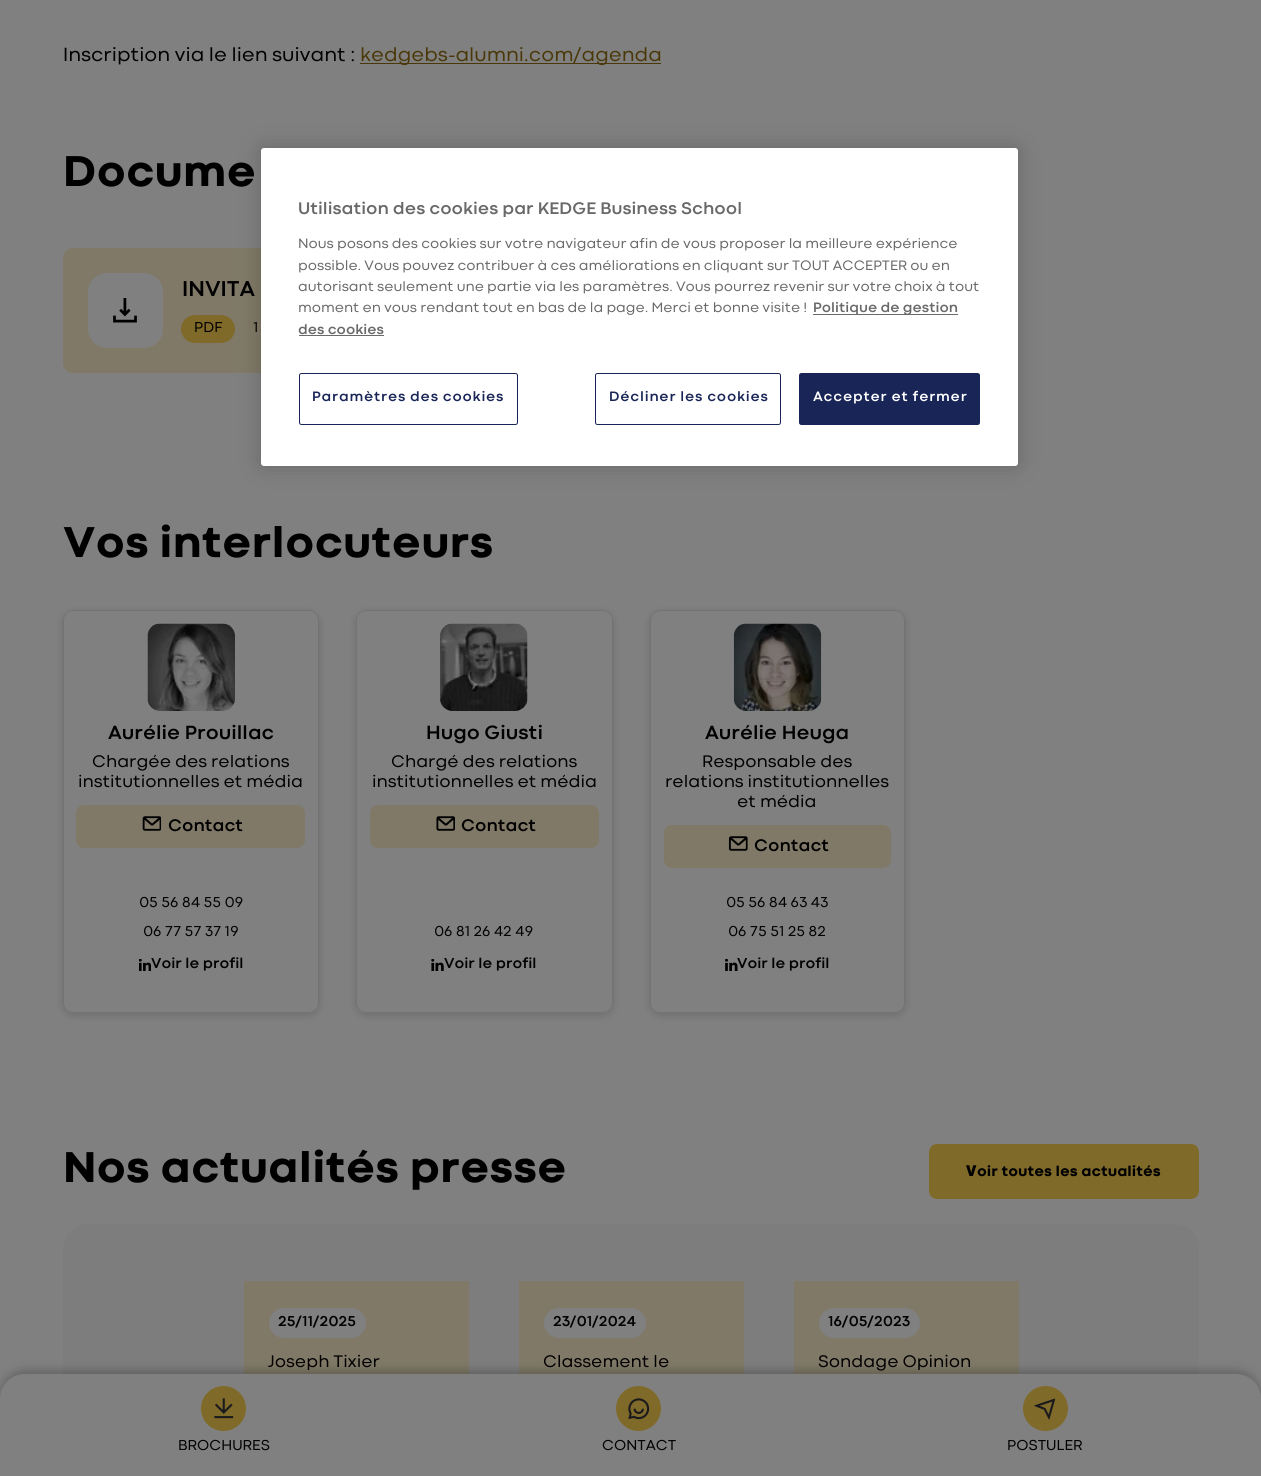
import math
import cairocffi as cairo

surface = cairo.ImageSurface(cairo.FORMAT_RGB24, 1261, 1476)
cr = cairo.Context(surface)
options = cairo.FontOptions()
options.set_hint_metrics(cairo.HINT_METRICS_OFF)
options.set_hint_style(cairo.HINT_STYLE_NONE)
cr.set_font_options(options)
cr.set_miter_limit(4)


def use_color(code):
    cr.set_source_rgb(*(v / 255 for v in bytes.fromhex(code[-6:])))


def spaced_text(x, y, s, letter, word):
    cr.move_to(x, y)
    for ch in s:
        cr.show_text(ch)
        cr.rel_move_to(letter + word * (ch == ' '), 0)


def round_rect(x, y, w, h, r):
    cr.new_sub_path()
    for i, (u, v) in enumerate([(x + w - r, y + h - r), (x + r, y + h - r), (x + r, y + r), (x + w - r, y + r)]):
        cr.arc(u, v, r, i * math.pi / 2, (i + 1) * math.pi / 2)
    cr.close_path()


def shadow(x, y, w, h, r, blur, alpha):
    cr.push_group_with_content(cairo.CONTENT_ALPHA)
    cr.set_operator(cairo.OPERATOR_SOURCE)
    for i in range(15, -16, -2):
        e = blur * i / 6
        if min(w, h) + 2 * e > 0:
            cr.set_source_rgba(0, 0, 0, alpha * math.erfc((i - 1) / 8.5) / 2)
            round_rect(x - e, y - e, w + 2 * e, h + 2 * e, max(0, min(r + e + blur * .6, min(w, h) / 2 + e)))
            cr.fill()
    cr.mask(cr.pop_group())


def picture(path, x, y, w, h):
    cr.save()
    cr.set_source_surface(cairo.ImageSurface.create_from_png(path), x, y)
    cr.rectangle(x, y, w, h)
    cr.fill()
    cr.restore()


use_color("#808080")
cr.paint()
cr.select_font_face("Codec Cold")
cr.set_font_size(20)
use_color("#000000")
cr.move_to(63, 61)
cr.show_text("Inscription via le lien suivant :")
use_color("#4a3808")
cr.rectangle(360, 63, 301, 1)
cr.fill()
cr.move_to(360, 61)
cr.show_text("kedgebs-alumni.com/agenda")
cr.select_font_face("Codec Cold ExtraBold")
cr.set_font_size(45)
use_color("#000000")
cr.move_to(63, 186)
cr.show_text("Docume")
use_color("#807967")
round_rect(63, 248, 763, 125, 10)
cr.fill()
use_color("#808080")
round_rect(88, 273, 75, 75, 19)
cr.fill()
picture("img1.png", 113, 298, 24, 25)
cr.select_font_face("Codec Cold", cairo.FONT_SLANT_NORMAL, cairo.FONT_WEIGHT_BOLD)
cr.set_font_size(22.5)
use_color("#000000")
cr.move_to(182, 296)
cr.show_text("INVITA")
use_color("#806a2a")
round_rect(181, 315, 54, 28, 14)
cr.fill()
cr.select_font_face("Codec Cold")
cr.set_font_size(15)
use_color("#000000")
cr.move_to(194, 332)
cr.show_text("PDF")
cr.move_to(253, 332)
cr.show_text("1")
cr.select_font_face("Codec Cold ExtraBold")
cr.set_font_size(45)
cr.move_to(63, 557)
cr.show_text("Vos interlocuteurs")
cr.save()
cr.set_fill_rule(cairo.FILL_RULE_EVEN_ODD)
cr.new_path()
cr.move_to(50, 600)
cr.line_to(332, 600)
cr.line_to(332, 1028)
cr.line_to(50, 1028)
cr.close_path()
cr.move_to(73, 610)
cr.line_to(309, 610)
cr.curve_to(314.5, 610, 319, 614.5, 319, 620)
cr.line_to(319, 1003)
cr.curve_to(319, 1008.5, 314.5, 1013, 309, 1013)
cr.line_to(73, 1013)
cr.curve_to(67.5, 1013, 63, 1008.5, 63, 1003)
cr.line_to(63, 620)
cr.curve_to(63, 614.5, 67.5, 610, 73, 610)
cr.close_path()
cr.clip()
use_color("#000000")
shadow(63, 613, 256, 402, 10, 4, 0.15)
cr.restore()
round_rect(63.5, 610.5, 255, 402, 9.5)
use_color("#737373")
cr.set_line_width(1)
cr.stroke()
picture("img2.png", 147, 623, 88, 88)
cr.select_font_face("Codec Cold", cairo.FONT_SLANT_NORMAL, cairo.FONT_WEIGHT_BOLD)
cr.set_font_size(20)
use_color("#000000")
cr.move_to(108, 739)
cr.show_text("Aurélie Prouillac")
cr.select_font_face("Codec Cold")
cr.set_font_size(17.5)
cr.move_to(92, 767)
cr.show_text("Chargée des relations")
cr.move_to(78, 787)
cr.show_text("institutionnelles et média")
use_color("#807967")
round_rect(77.5, 806.5, 226, 40, 6.5)
cr.fill_preserve()
cr.set_line_width(3)
cr.stroke()
picture("img3.png", 142, 816, 19, 15)
cr.select_font_face("Codec Cold", cairo.FONT_SLANT_NORMAL, cairo.FONT_WEIGHT_BOLD)
use_color("#000000")
cr.move_to(168, 831)
cr.show_text("Contact")
cr.select_font_face("Codec Cold")
cr.set_font_size(15)
cr.move_to(139, 907)
cr.show_text("05 56 84 55 09")
cr.move_to(143, 936)
cr.show_text("06 77 57 37 19")
picture("img4.png", 139, 959, 12, 12)
cr.select_font_face("Codec Cold", cairo.FONT_SLANT_NORMAL, cairo.FONT_WEIGHT_BOLD)
cr.move_to(151, 968)
cr.show_text("Voir le profil")
cr.save()
cr.set_fill_rule(cairo.FILL_RULE_EVEN_ODD)
cr.new_path()
cr.move_to(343, 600)
cr.line_to(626, 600)
cr.line_to(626, 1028)
cr.line_to(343, 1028)
cr.close_path()
cr.move_to(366, 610)
cr.line_to(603, 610)
cr.curve_to(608.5, 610, 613, 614.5, 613, 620)
cr.line_to(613, 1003)
cr.curve_to(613, 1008.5, 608.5, 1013, 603, 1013)
cr.line_to(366, 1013)
cr.curve_to(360.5, 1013, 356, 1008.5, 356, 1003)
cr.line_to(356, 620)
cr.curve_to(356, 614.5, 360.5, 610, 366, 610)
cr.close_path()
cr.clip()
use_color("#000000")
shadow(356, 613, 257, 402, 10, 4, 0.15)
cr.restore()
round_rect(356.5, 610.5, 256, 402, 9.5)
use_color("#737373")
cr.set_line_width(1)
cr.stroke()
picture("img5.png", 440, 623, 88, 88)
cr.set_font_size(20)
use_color("#000000")
cr.move_to(426, 739)
cr.show_text("Hugo Giusti")
cr.select_font_face("Codec Cold")
cr.set_font_size(17.5)
cr.move_to(391, 767)
cr.show_text("Chargé des relations")
cr.move_to(372, 787)
cr.show_text("institutionnelles et média")
use_color("#807967")
round_rect(371.5, 806.5, 226, 40, 6.5)
cr.fill_preserve()
cr.set_line_width(3)
cr.stroke()
picture("img6.png", 436, 816, 19, 15)
cr.select_font_face("Codec Cold", cairo.FONT_SLANT_NORMAL, cairo.FONT_WEIGHT_BOLD)
use_color("#000000")
cr.move_to(461, 831)
cr.show_text("Contact")
cr.select_font_face("Codec Cold")
cr.set_font_size(15)
cr.move_to(434, 936)
cr.show_text("06 81 26 42 49")
picture("img7.png", 431, 959, 13, 12)
cr.select_font_face("Codec Cold", cairo.FONT_SLANT_NORMAL, cairo.FONT_WEIGHT_BOLD)
cr.move_to(444, 968)
cr.show_text("Voir le profil")
cr.save()
cr.set_fill_rule(cairo.FILL_RULE_EVEN_ODD)
cr.new_path()
cr.move_to(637, 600)
cr.line_to(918, 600)
cr.line_to(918, 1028)
cr.line_to(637, 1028)
cr.close_path()
cr.move_to(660, 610)
cr.line_to(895, 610)
cr.curve_to(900.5, 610, 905, 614.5, 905, 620)
cr.line_to(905, 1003)
cr.curve_to(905, 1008.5, 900.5, 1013, 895, 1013)
cr.line_to(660, 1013)
cr.curve_to(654.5, 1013, 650, 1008.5, 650, 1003)
cr.line_to(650, 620)
cr.curve_to(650, 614.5, 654.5, 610, 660, 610)
cr.close_path()
cr.clip()
use_color("#000000")
shadow(650, 613, 255, 402, 10, 4, 0.15)
cr.restore()
round_rect(650.5, 610.5, 254, 402, 9.5)
use_color("#737373")
cr.set_line_width(1)
cr.stroke()
picture("img8.png", 733, 623, 89, 88)
cr.set_font_size(20)
use_color("#000000")
cr.move_to(705, 739)
cr.show_text("Aurélie Heuga")
cr.select_font_face("Codec Cold")
cr.set_font_size(17.5)
cr.move_to(702, 767)
cr.show_text("Responsable des")
cr.move_to(665, 787)
cr.show_text("relations institutionnelles")
cr.move_to(737, 807)
cr.show_text("et média")
use_color("#807967")
round_rect(665.5, 826.5, 224, 40, 6.5)
cr.fill_preserve()
cr.set_line_width(3)
cr.stroke()
picture("img9.png", 728, 836, 20, 15)
cr.select_font_face("Codec Cold", cairo.FONT_SLANT_NORMAL, cairo.FONT_WEIGHT_BOLD)
use_color("#000000")
cr.move_to(754, 851)
cr.show_text("Contact")
cr.select_font_face("Codec Cold")
cr.set_font_size(15)
cr.move_to(726, 907)
cr.show_text("05 56 84 63 43")
cr.move_to(728, 936)
cr.show_text("06 75 51 25 82")
cr.select_font_face("Codec Cold", cairo.FONT_SLANT_NORMAL, cairo.FONT_WEIGHT_BOLD)
cr.move_to(737, 968)
cr.show_text("Voir le profil")
picture("img10.png", 725, 959, 13, 12)
cr.select_font_face("Codec Cold ExtraBold")
cr.set_font_size(45)
cr.move_to(63, 1182)
cr.show_text("Nos actualités presse")
use_color("#806a2a")
round_rect(930.5, 1145.5, 267, 52, 6.5)
cr.fill_preserve()
cr.stroke()
cr.select_font_face("Noto Sans Black")
cr.set_font_size(15)
use_color("#000000")
cr.move_to(966, 1176)
cr.show_text("V")
cr.select_font_face("Codec Cold ExtraBold")
cr.move_to(977, 1176)
cr.show_text("oir toutes les actualités")
use_color("#7d7d7d")
round_rect(63, 1224, 1136, 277, 25)
cr.fill()
use_color("#807967")
cr.rectangle(244, 1281, 225, 93)
cr.fill()
use_color("#808080")
round_rect(269, 1308, 97, 30, 15)
cr.fill()
cr.select_font_face("Codec Cold", cairo.FONT_SLANT_NORMAL, cairo.FONT_WEIGHT_BOLD)
use_color("#000000")
cr.move_to(278, 1326)
cr.show_text("25/11/2025")
cr.select_font_face("Codec Cold")
cr.set_font_size(17.5)
cr.move_to(268, 1367)
cr.show_text("Joseph Tixier")
use_color("#807967")
cr.rectangle(519, 1281, 225, 93)
cr.fill()
use_color("#808080")
round_rect(544, 1308, 102, 30, 15)
cr.fill()
cr.select_font_face("Codec Cold", cairo.FONT_SLANT_NORMAL, cairo.FONT_WEIGHT_BOLD)
cr.set_font_size(15)
use_color("#000000")
cr.move_to(553, 1326)
cr.show_text("23/01/2024")
cr.select_font_face("Codec Cold")
cr.set_font_size(17.5)
cr.move_to(543, 1367)
cr.show_text("Classement le")
use_color("#807967")
cr.rectangle(794, 1281, 225, 93)
cr.fill()
use_color("#808080")
round_rect(819, 1308, 101, 30, 15)
cr.fill()
cr.select_font_face("Codec Cold", cairo.FONT_SLANT_NORMAL, cairo.FONT_WEIGHT_BOLD)
cr.set_font_size(15)
use_color("#000000")
cr.move_to(828, 1326)
cr.show_text("16/05/2023")
cr.select_font_face("Codec Cold")
cr.set_font_size(17.5)
cr.move_to(818, 1367)
cr.show_text("Sondage Opinion")
use_color("#000000")
shadow(0, 1371, 1261, 103, 25, 5, 0.25)
use_color("#808080")
cr.new_path()
cr.move_to(25, 1374)
cr.line_to(1236, 1374)
cr.curve_to(1250, 1374, 1261, 1385, 1261, 1399)
cr.line_to(1261, 1476)
cr.line_to(0, 1476)
cr.line_to(0, 1399)
cr.curve_to(0, 1385, 11, 1374, 25, 1374)
cr.close_path()
cr.fill()
use_color("#806a2a")
cr.arc(223.5, 1408.5, 22.5, 0, 2 * math.pi)
cr.fill()
picture("img11.png", 214, 1398, 20, 21)
cr.set_font_size(15)
use_color("#000000")
cr.move_to(178, 1450)
cr.show_text("BROCHURES")
use_color("#806a2a")
cr.new_path()
cr.arc(638.5, 1408.5, 22.5, 0, 2 * math.pi)
cr.fill()
picture("img12.png", 628, 1398, 22, 22)
use_color("#000000")
cr.move_to(602, 1450)
cr.show_text("CONTACT")
use_color("#806a2a")
cr.new_path()
cr.arc(1045.5, 1408.5, 22.5, 0, 2 * math.pi)
cr.fill()
picture("img13.png", 1034, 1398, 22, 22)
use_color("#000000")
cr.move_to(1007, 1450)
cr.show_text("POSTULER")
use_color("#000000")
shadow(261, 148, 757, 318, 3, 11, 0.2)
use_color("#ffffff")
round_rect(261, 148, 757, 318, 3)
cr.fill()
cr.select_font_face("Codec Cold", cairo.FONT_SLANT_NORMAL, cairo.FONT_WEIGHT_BOLD)
cr.set_font_size(17.5)
use_color("#696969")
cr.move_to(298, 214)
cr.show_text("Utilisation des cookies par KEDGE Business School")
cr.select_font_face("Codec Cold")
cr.set_font_size(14.25)
cr.move_to(298, 248)
cr.show_text("Nous posons des cookies sur votre navigateur afin de vous proposer la meilleure expérience")
cr.move_to(298, 270)
cr.show_text("possible. Vous pouvez contribuer à ces améliorations en cliquant sur TOUT ACCEPTER ou en")
cr.move_to(298, 291)
cr.show_text("autorisant seulement une partie via les paramètres. Vous pourrez revenir sur votre choix à tout")
cr.move_to(298, 312)
cr.show_text("moment en vous rendant tout en bas de la page. Merci et bonne visite !")
cr.rectangle(813, 314, 145, 1)
cr.fill()
cr.select_font_face("Codec Cold", cairo.FONT_SLANT_NORMAL, cairo.FONT_WEIGHT_BOLD)
cr.move_to(813, 312)
cr.show_text("Politique de gestion")
cr.move_to(298, 334)
cr.show_text("des cookies")
cr.rectangle(299, 335, 85, 1)
cr.fill()
round_rect(299.5, 373.5, 218, 51, 2)
use_color("#1a2557")
cr.set_line_width(1)
cr.stroke()
spaced_text(312, 401, "Paramètres des cookies", 0.75, 0)
round_rect(595.5, 373.5, 185, 51, 2)
cr.stroke()
spaced_text(609, 401, "Décliner les cookies", 0.75, 0)
round_rect(799.5, 373.5, 180, 51, 2)
cr.fill_preserve()
cr.stroke()
use_color("#ffffff")
spaced_text(813, 401, "Accepter et fermer", 0.75, 0)
surface.write_to_png("result.png")
